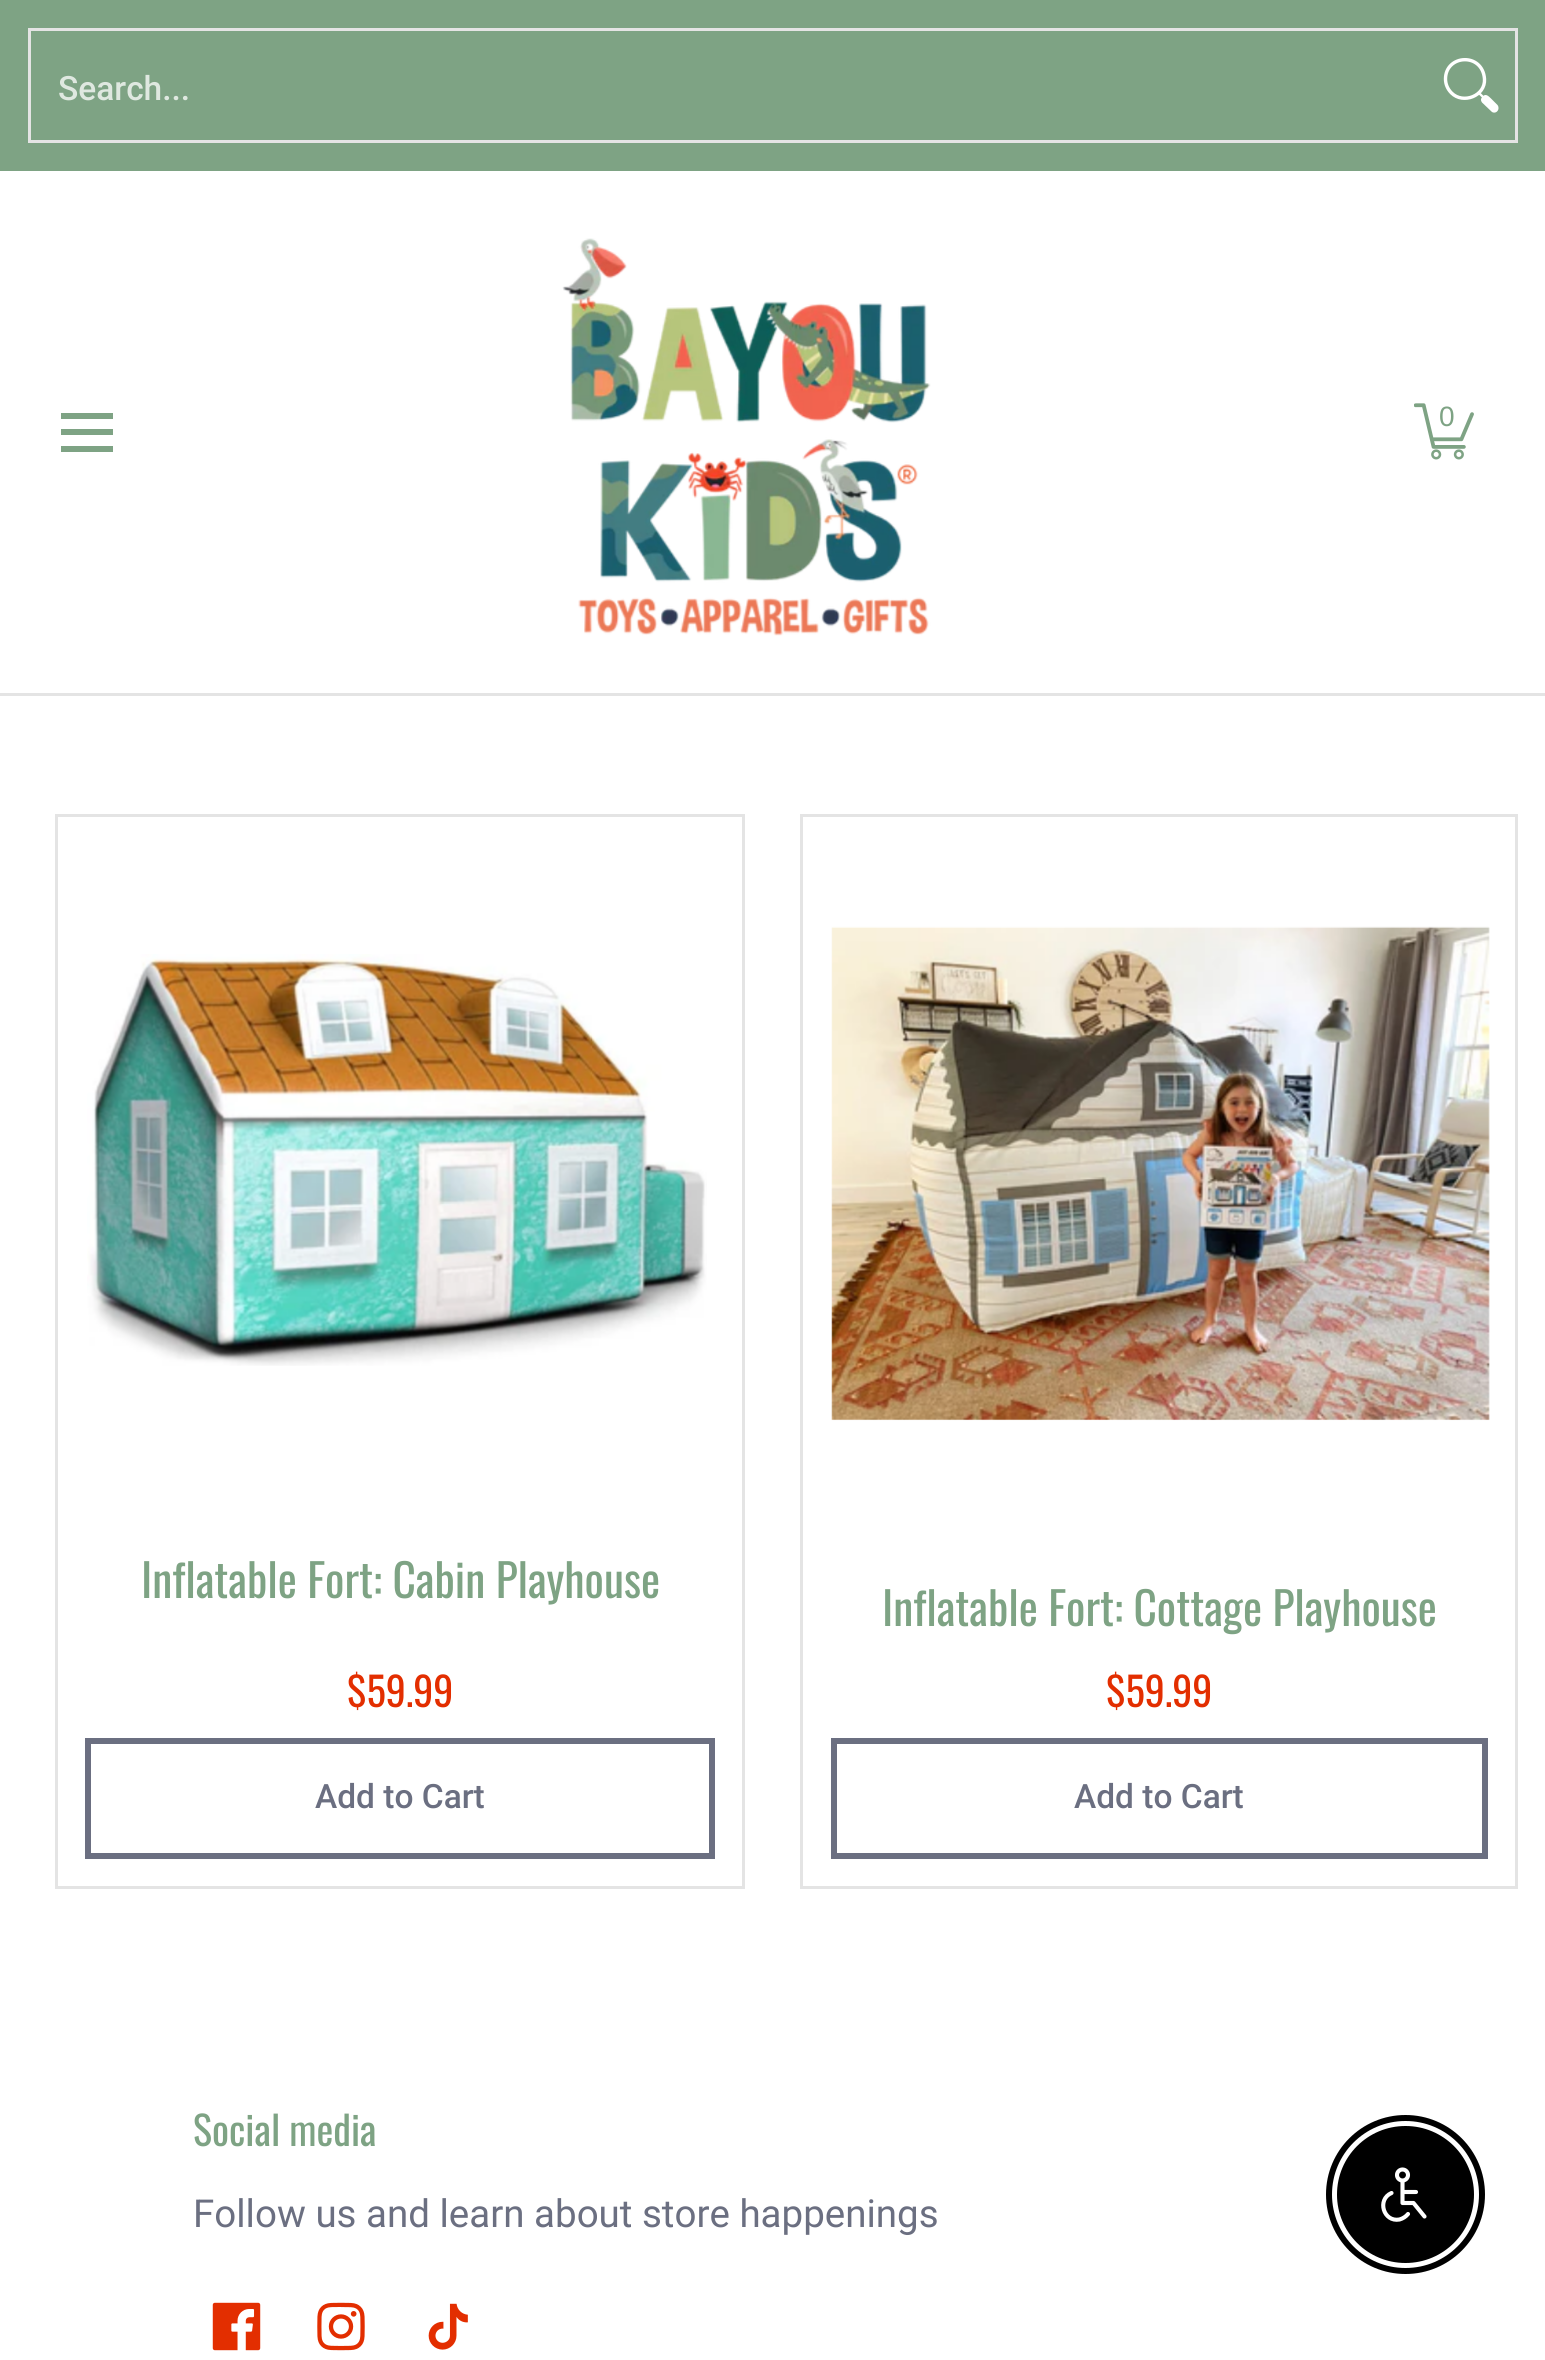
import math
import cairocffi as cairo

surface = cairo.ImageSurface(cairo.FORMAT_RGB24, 1545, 2360)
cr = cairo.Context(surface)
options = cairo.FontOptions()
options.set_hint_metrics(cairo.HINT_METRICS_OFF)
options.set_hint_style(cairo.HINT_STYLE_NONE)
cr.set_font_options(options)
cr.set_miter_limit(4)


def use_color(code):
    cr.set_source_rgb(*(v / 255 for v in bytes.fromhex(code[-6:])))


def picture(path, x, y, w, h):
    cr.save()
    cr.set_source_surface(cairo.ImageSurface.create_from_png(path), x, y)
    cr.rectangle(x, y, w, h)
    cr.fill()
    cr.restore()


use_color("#ffffff")
cr.paint()
use_color("#7ea384")
cr.rectangle(0, 0, 1545, 171)
cr.fill()
cr.rectangle(29.5, 29.5, 1487, 112)
use_color("#e4e4e4")
cr.set_line_width(3)
cr.stroke()
cr.select_font_face("Roboto Medium")
cr.set_font_size(33.5)
use_color("#dfe8e0")
cr.move_to(58, 100)
cr.show_text("Search...")
cr.new_path()
cr.move_to(1445.5, 79)
cr.curve_to(1445.5, 84, 1447.5, 89, 1451.5, 93)
cr.curve_to(1463, 104.5, 1485.5, 96, 1484.5, 79)
cr.curve_to(1482.5, 52, 1445.5, 54.5, 1445.5, 79)
cr.close_path()
use_color("#ffffff")
cr.set_line_width(3.4)
cr.set_line_cap(cairo.LINE_CAP_ROUND)
cr.set_line_join(cairo.LINE_JOIN_ROUND)
cr.stroke()
cr.new_path()
cr.move_to(1478, 92)
cr.line_to(1483.5, 97.5)
cr.set_line_width(2.3)
cr.set_line_cap(cairo.LINE_CAP_BUTT)
cr.stroke()
cr.new_path()
cr.move_to(1497.5, 105)
cr.curve_to(1500.5, 109, 1496.5, 114.5, 1492, 112)
cr.line_to(1482, 102.5)
cr.curve_to(1481, 101, 1480.5, 99.5, 1481.5, 98)
cr.curve_to(1485, 92.5, 1488, 95.5, 1491.5, 99)
cr.close_path()
cr.fill()
use_color("#e4e4e4")
cr.rectangle(0, 693, 1545, 3)
cr.fill()
use_color("#7ea384")
cr.rectangle(61, 413, 52, 6)
cr.fill()
cr.rectangle(61, 446, 52, 6)
cr.fill()
cr.rectangle(61, 429, 52, 6)
cr.fill()
picture("img1.png", 562, 238, 369, 398)
picture("img2.png", 1414, 403, 60, 57)
cr.select_font_face("Liberation Sans")
cr.set_font_size(28)
cr.move_to(1439, 426)
cr.show_text("0")
cr.rectangle(56.5, 815.5, 687, 1072)
use_color("#e4e4e4")
cr.set_line_width(3)
cr.set_line_join(cairo.LINE_JOIN_MITER)
cr.stroke()
picture("img3.png", 87, 954, 620, 412)
cr.select_font_face("Oswald")
cr.set_font_size(45.5)
use_color("#7ea384")
cr.move_to(141, 1598)
cr.show_text("Inflatable Fort: Cabin Playhouse")
cr.set_font_size(40)
use_color("#e32e00")
cr.move_to(347, 1707)
cr.show_text("$59.99")
cr.rectangle(88, 1741, 624, 115)
use_color("#6b6f81")
cr.set_line_width(6)
cr.stroke()
cr.select_font_face("Roboto Medium")
cr.set_font_size(33.5)
cr.move_to(315, 1808)
cr.show_text("Add to Cart")
cr.rectangle(801.5, 815.5, 715, 1072)
use_color("#e4e4e4")
cr.set_line_width(3)
cr.stroke()
picture("img4.png", 831, 926, 659, 495)
cr.select_font_face("Oswald")
cr.set_font_size(45.5)
use_color("#7ea384")
cr.move_to(882, 1626)
cr.show_text("Inflatable Fort: Cottage Playhouse")
cr.set_font_size(40)
use_color("#e32e00")
cr.move_to(1106, 1707)
cr.show_text("$59.99")
cr.rectangle(834, 1741, 651, 115)
use_color("#6b6f81")
cr.set_line_width(6)
cr.stroke()
cr.select_font_face("Roboto Medium")
cr.set_font_size(33.5)
cr.move_to(1074, 1808)
cr.show_text("Add to Cart")
cr.select_font_face("Oswald")
cr.set_font_size(40)
use_color("#7ea384")
cr.move_to(193, 2146)
cr.show_text("Social media")
cr.select_font_face("Roboto")
cr.set_font_size(38.5)
use_color("#6b6f81")
cr.move_to(193, 2227)
cr.show_text("Follow us and learn about store happenings")
picture("img5.png", 212, 2302, 49, 49)
picture("img6.png", 317, 2302, 48, 49)
picture("img7.png", 428, 2303, 40, 47)
cr.arc(1405.5, 2194.5, 76.5, 0, 2 * math.pi)
use_color("#000000")
cr.stroke()
cr.arc(1405.5, 2194.5, 67, 0, 2 * math.pi)
cr.fill_preserve()
cr.set_line_width(3)
cr.stroke()
cr.arc(1402.5, 2175, 5.5, 0, 2 * math.pi)
use_color("#ffffff")
cr.set_line_width(4.1)
cr.stroke()
cr.new_path()
cr.move_to(1402.5, 2181)
cr.line_to(1402.5, 2203)
cr.line_to(1413.5, 2203)
cr.line_to(1424.5, 2216.5)
cr.move_to(1402.5, 2192)
cr.line_to(1416, 2192)
cr.move_to(1391.5, 2193)
cr.curve_to(1376.5, 2199.5, 1383.5, 2222.5, 1399.5, 2219.5)
cr.curve_to(1403, 2218.5, 1406, 2216.5, 1408, 2214)
cr.set_line_cap(cairo.LINE_CAP_ROUND)
cr.set_line_join(cairo.LINE_JOIN_ROUND)
cr.stroke()
surface.write_to_png("result.png")
